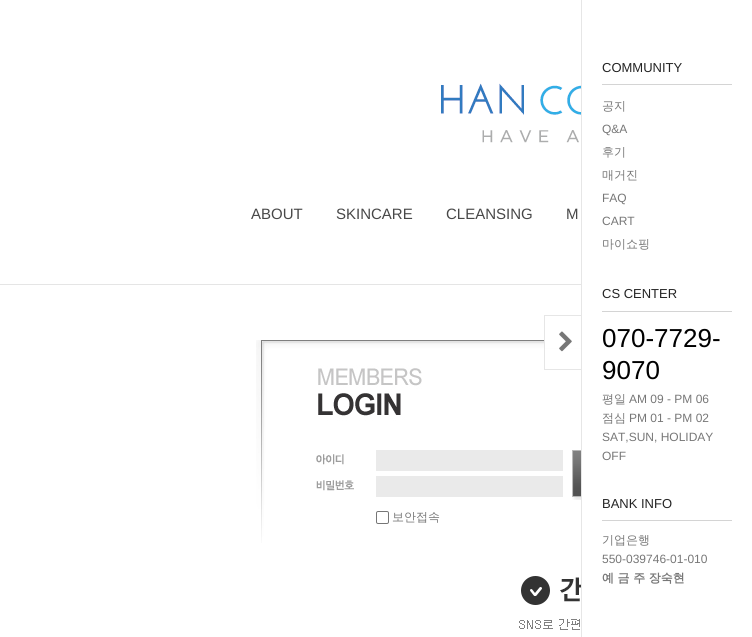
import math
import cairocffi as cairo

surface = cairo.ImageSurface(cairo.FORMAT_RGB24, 752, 637)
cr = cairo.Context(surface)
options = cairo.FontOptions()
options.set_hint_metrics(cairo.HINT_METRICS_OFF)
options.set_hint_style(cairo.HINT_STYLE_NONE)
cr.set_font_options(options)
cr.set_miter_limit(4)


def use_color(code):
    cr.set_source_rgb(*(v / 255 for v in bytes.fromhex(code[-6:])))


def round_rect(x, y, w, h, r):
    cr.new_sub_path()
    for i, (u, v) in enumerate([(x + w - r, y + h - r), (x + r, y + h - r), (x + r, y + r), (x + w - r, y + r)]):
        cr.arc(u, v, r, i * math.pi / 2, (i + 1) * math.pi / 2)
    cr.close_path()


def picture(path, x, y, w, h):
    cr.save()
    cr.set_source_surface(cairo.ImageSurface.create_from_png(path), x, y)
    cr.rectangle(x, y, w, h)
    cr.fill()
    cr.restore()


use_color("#ffffff")
cr.paint()
picture("img1.png", 441, 83, 140, 60)
cr.select_font_face("Liberation Sans")
cr.set_font_size(15)
use_color("#484848")
cr.move_to(251, 219)
cr.show_text("ABOUT")
cr.move_to(336, 219)
cr.show_text("SKINCARE")
cr.move_to(446, 219)
cr.show_text("CLEANSING")
cr.move_to(566, 219)
cr.show_text("M")
use_color("#e6e6e6")
cr.rectangle(581, 0, 1, 637)
cr.fill()
picture("img3.png", 256, 340, 325, 203)
use_color("#ffffff")
cr.rectangle(545, 340, 36, 8)
cr.fill()
cr.rectangle(544.5, 315.5, 37, 54)
use_color("#e6e6e6")
cr.set_line_width(1)
cr.stroke()
picture("img2.png", 559, 331, 13, 21)
use_color("#d4d4d4")
cr.rectangle(602, 84, 130, 1)
cr.fill()
cr.set_font_size(13)
use_color("#242424")
cr.move_to(602, 72)
cr.show_text("COMMUNITY")
cr.select_font_face("WenQuanYi Zen Hei Medium")
cr.set_font_size(12)
use_color("#777777")
cr.move_to(602, 110)
cr.show_text("공지")
cr.select_font_face("Liberation Sans")
cr.move_to(602, 133)
cr.show_text("Q&A")
cr.select_font_face("WenQuanYi Zen Hei Medium")
cr.move_to(602, 156)
cr.show_text("후기")
cr.move_to(602, 179)
cr.show_text("매거진")
cr.select_font_face("Liberation Sans")
cr.move_to(602, 202)
cr.show_text("FAQ")
cr.move_to(602, 225)
cr.show_text("CART")
cr.select_font_face("WenQuanYi Zen Hei Medium")
cr.move_to(602, 248)
cr.show_text("마이쇼핑")
use_color("#d4d4d4")
cr.rectangle(602, 311, 130, 1)
cr.fill()
cr.select_font_face("Liberation Sans")
cr.set_font_size(13)
use_color("#242424")
cr.move_to(602, 298)
cr.show_text("CS CENTER")
cr.set_font_size(26)
use_color("#000000")
cr.move_to(602, 347)
cr.show_text("070-7729-")
cr.move_to(602, 379)
cr.show_text("9070")
cr.select_font_face("WenQuanYi Zen Hei Medium")
cr.set_font_size(12)
use_color("#777777")
cr.move_to(602, 403)
cr.show_text("평일")
cr.select_font_face("Liberation Sans")
cr.move_to(629, 403)
cr.show_text("AM 09 - PM 06")
cr.select_font_face("WenQuanYi Zen Hei Medium")
cr.move_to(602, 422)
cr.show_text("점심")
cr.select_font_face("Liberation Sans")
cr.move_to(629, 422)
cr.show_text("PM 01 - PM 02")
cr.move_to(602, 441)
cr.show_text("SAT,SUN, HOLIDAY")
cr.move_to(602, 460)
cr.show_text("OFF")
use_color("#d4d4d4")
cr.rectangle(602, 520, 130, 1)
cr.fill()
cr.set_font_size(13)
use_color("#242424")
cr.move_to(602, 508)
cr.show_text("BANK INFO")
cr.select_font_face("WenQuanYi Zen Hei Medium")
cr.set_font_size(12)
use_color("#777777")
cr.move_to(602, 544)
cr.show_text("기업은행")
cr.select_font_face("Liberation Sans")
cr.move_to(602, 563)
cr.show_text("550-039746-01-010")
cr.select_font_face("WenQuanYi Zen Hei", cairo.FONT_SLANT_NORMAL, cairo.FONT_WEIGHT_BOLD)
cr.move_to(602, 582)
cr.show_text("예 금 주 장숙현")
use_color("#e5e5e5")
cr.rectangle(0, 284, 581, 1)
cr.fill()
picture("img4.png", 316, 454, 28, 11)
use_color("#eaeaea")
cr.rectangle(376, 450, 187, 21)
cr.fill()
picture("img5.png", 316, 480, 38, 11)
cr.rectangle(376, 476, 187, 21)
cr.fill()
picture("img6.png", 572, 450, 9, 50)
round_rect(376.5, 511.5, 12, 12, 1.5)
use_color("#767676")
cr.stroke()
cr.select_font_face("WenQuanYi Zen Hei Medium")
use_color("#777777")
cr.move_to(392, 521)
cr.show_text("보안접속")
picture("img7.png", 519, 576, 62, 54)
surface.write_to_png("result.png")
